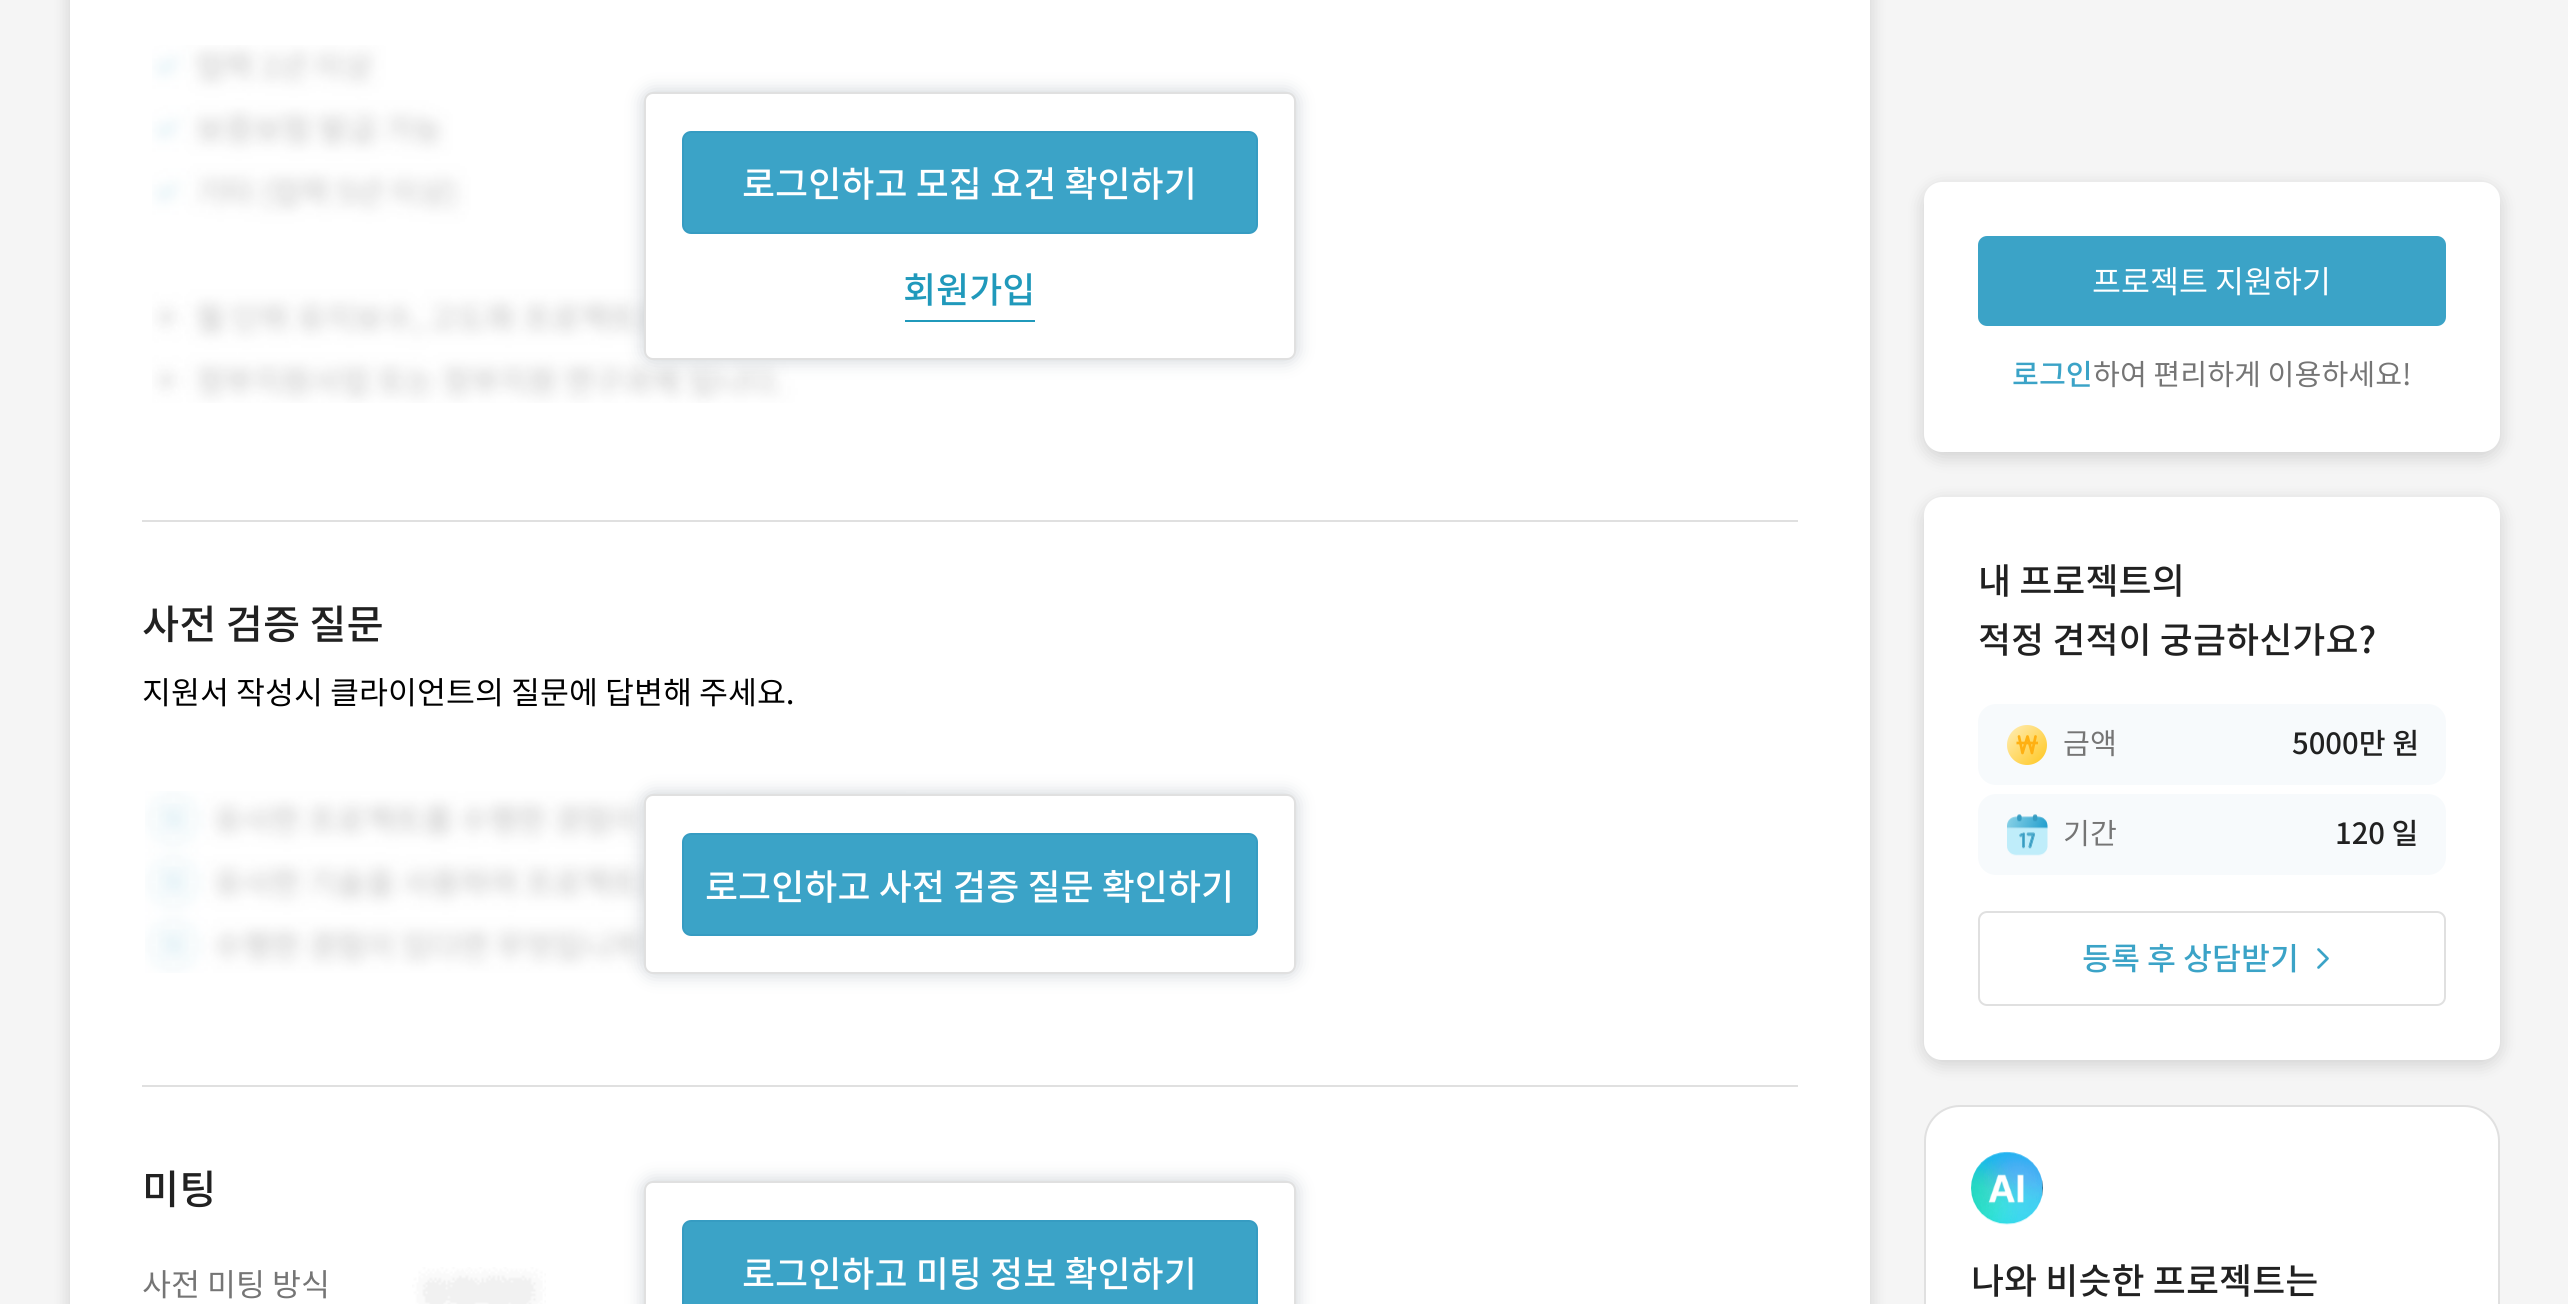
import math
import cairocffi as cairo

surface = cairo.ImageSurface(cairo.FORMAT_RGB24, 2568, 1304)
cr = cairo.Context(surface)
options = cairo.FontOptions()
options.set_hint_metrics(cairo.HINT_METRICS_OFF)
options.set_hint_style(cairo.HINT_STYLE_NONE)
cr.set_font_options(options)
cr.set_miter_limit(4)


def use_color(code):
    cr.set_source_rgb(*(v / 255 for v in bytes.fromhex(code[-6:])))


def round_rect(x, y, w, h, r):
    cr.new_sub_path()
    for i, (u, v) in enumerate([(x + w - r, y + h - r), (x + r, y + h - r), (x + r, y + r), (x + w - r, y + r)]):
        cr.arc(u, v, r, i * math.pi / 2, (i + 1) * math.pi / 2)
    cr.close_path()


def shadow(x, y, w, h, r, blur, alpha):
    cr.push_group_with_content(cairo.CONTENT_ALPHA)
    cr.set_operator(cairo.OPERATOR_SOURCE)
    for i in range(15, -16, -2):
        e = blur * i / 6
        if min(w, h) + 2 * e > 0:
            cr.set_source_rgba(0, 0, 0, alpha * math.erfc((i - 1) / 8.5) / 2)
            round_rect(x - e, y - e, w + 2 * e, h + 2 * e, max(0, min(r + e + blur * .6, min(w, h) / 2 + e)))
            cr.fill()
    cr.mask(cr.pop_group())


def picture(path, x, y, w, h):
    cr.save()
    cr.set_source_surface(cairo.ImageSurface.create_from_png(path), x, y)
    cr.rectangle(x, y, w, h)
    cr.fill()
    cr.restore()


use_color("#f5f5f5")
cr.paint()
use_color("#000000")
shadow(70, -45, 1800, 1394, 18, 9, 0.16)
use_color("#ffffff")
cr.rectangle(70, 0, 1800, 1304)
cr.fill()
picture("img1.png", 152, 45, 1094, 358)
use_color("#ccd1d6")
shadow(644, 92, 652, 268, 9, 9, 1)
use_color("#ffffff")
round_rect(645, 93, 650, 266, 8)
cr.fill_preserve()
use_color("#e0e0e0")
cr.stroke()
use_color("#3ba3c7")
round_rect(683, 132, 574, 101, 8)
cr.fill_preserve()
use_color("#369cc2")
cr.stroke()
cr.select_font_face("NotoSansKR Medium")
cr.set_font_size(36)
use_color("#ffffff")
cr.move_to(742, 197)
cr.show_text("로그인하고 모집 요건 확인하기")
use_color("#2099bb")
cr.rectangle(905, 320, 130, 2)
cr.fill()
cr.move_to(903, 303)
cr.show_text("회원가입")
use_color("#e0e0e0")
cr.rectangle(142, 520, 1656, 2)
cr.fill()
cr.set_font_size(40.5)
use_color("#212121")
cr.move_to(142, 639)
cr.show_text("사전 검증 질문")
cr.select_font_face("NotoSansKR")
cr.set_font_size(31.5)
use_color("#000000")
cr.move_to(142, 704)
cr.show_text("지원서 작성시 클라이언트의 질문에 답변해 주세요.")
picture("img2.png", 145, 791, 854, 182)
use_color("#ccd1d6")
shadow(644, 794, 652, 180, 9, 9, 1)
use_color("#ffffff")
round_rect(645, 795, 650, 178, 8)
cr.fill_preserve()
use_color("#e0e0e0")
cr.stroke()
use_color("#3ba3c7")
round_rect(683, 834, 574, 101, 8)
cr.fill_preserve()
use_color("#369cc2")
cr.stroke()
cr.select_font_face("NotoSansKR Medium")
cr.set_font_size(36)
use_color("#ffffff")
cr.move_to(705, 900)
cr.show_text("로그인하고 사전 검증 질문 확인하기")
use_color("#e0e0e0")
cr.rectangle(142, 1085, 1656, 2)
cr.fill()
cr.set_font_size(40.5)
use_color("#212121")
cr.move_to(142, 1204)
cr.show_text("미팅")
cr.select_font_face("NotoSansKR")
cr.set_font_size(31.5)
use_color("#757575")
cr.move_to(142, 1296)
cr.show_text("사전 미팅 방식")
picture("img3.png", 412, 1267, 134, 37)
use_color("#ccd1d6")
shadow(644, 1181, 652, 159, 9, 9, 1)
use_color("#ffffff")
round_rect(645, 1182, 650, 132, 8)
cr.fill_preserve()
use_color("#e0e0e0")
cr.stroke()
use_color("#3ba3c7")
round_rect(683, 1221, 574, 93, 8)
cr.fill_preserve()
use_color("#369cc2")
cr.stroke()
cr.select_font_face("NotoSansKR Medium")
cr.set_font_size(36)
use_color("#ffffff")
cr.move_to(742, 1287)
cr.show_text("로그인하고 미팅 정보 확인하기")
use_color("#000000")
shadow(1924, 187, 576, 270, 18, 9, 0.16)
use_color("#ffffff")
round_rect(1924, 182, 576, 270, 18)
cr.fill()
use_color("#3ba3c7")
round_rect(1978, 236, 468, 90, 9)
cr.fill()
cr.select_font_face("NotoSansKR")
cr.set_font_size(31.5)
use_color("#ffffff")
cr.move_to(2092, 293)
cr.show_text("프로젝트 지원하기")
cr.select_font_face("NotoSansKR Medium")
cr.set_font_size(29.25)
use_color("#3ba3c7")
cr.move_to(2012, 385)
cr.show_text("로그인")
cr.select_font_face("NotoSansKR")
use_color("#757575")
cr.move_to(2093, 385)
cr.show_text("하여 편리하게 이용하세요!")
use_color("#000000")
shadow(1924, 502, 576, 562, 18, 9, 0.16)
use_color("#ffffff")
round_rect(1924, 497, 576, 563, 18)
cr.fill()
cr.select_font_face("NotoSansKR Medium")
cr.set_font_size(36)
use_color("#212121")
cr.move_to(1978, 594)
cr.show_text("내 프로젝트의")
cr.move_to(1978, 653)
cr.show_text("적정 견적이 궁금하신가요?")
use_color("#f7fafc")
round_rect(1978, 704, 468, 81, 18)
cr.fill()
gradient = cairo.LinearGradient(2007, 725, 2048, 765)
gradient.add_color_stop_rgba(0, 1, 0.933, 0.722, 1)
gradient.add_color_stop_rgba(1, 1, 0.776, 0.11, 1)
cr.set_source(gradient)
cr.arc(2027, 745, 20, 0, 2 * math.pi)
cr.fill()
cr.new_path()
cr.move_to(2035.5, 736.5)
cr.line_to(2032, 753)
cr.line_to(2027.5, 736.5)
cr.line_to(2022.5, 753)
cr.line_to(2019, 736.5)
use_color("#ffb012")
cr.set_line_width(2.7)
cr.set_line_cap(cairo.LINE_CAP_ROUND)
cr.set_line_join(cairo.LINE_JOIN_ROUND)
cr.stroke()
cr.new_path()
cr.move_to(2016.5, 743)
cr.line_to(2038, 743)
cr.set_line_cap(cairo.LINE_CAP_BUTT)
cr.stroke()
cr.select_font_face("NotoSansKR")
cr.set_font_size(29.25)
use_color("#757575")
cr.move_to(2063, 754)
cr.show_text("금액")
cr.select_font_face("NotoSansKR Medium")
use_color("#212121")
cr.move_to(2292, 754)
cr.show_text("5000만 원")
use_color("#f7fafc")
round_rect(1978, 794, 468, 81, 18)
cr.fill()
picture("img4.png", 2007, 814, 41, 42)
cr.select_font_face("NotoSansKR")
use_color("#757575")
cr.move_to(2063, 844)
cr.show_text("기간")
cr.select_font_face("NotoSansKR Medium")
use_color("#212121")
cr.move_to(2335, 844)
cr.show_text("120 일")
round_rect(1979, 912, 466, 93, 8)
use_color("#e0e0e0")
cr.set_line_width(2)
cr.set_line_join(cairo.LINE_JOIN_MITER)
cr.stroke()
cr.set_font_size(31.5)
use_color("#3ba3c7")
cr.move_to(2082, 970)
cr.show_text("등록 후 상담받기")
cr.new_path()
cr.move_to(2318.5, 967.5)
cr.line_to(2327.5, 958.5)
cr.line_to(2318.5, 949.5)
cr.set_line_width(2.7)
cr.set_line_cap(cairo.LINE_CAP_ROUND)
cr.set_line_join(cairo.LINE_JOIN_ROUND)
cr.stroke()
use_color("#ffffff")
round_rect(1925, 1106, 574, 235, 35)
cr.fill_preserve()
use_color("#e0e0e0")
cr.set_line_width(2)
cr.set_line_cap(cairo.LINE_CAP_BUTT)
cr.set_line_join(cairo.LINE_JOIN_MITER)
cr.stroke()
picture("img5.png", 1971, 1151, 72, 74)
cr.set_font_size(36)
use_color("#212121")
cr.move_to(1971, 1294)
cr.show_text("나와 비슷한 프로젝트는")
surface.write_to_png("result.png")
